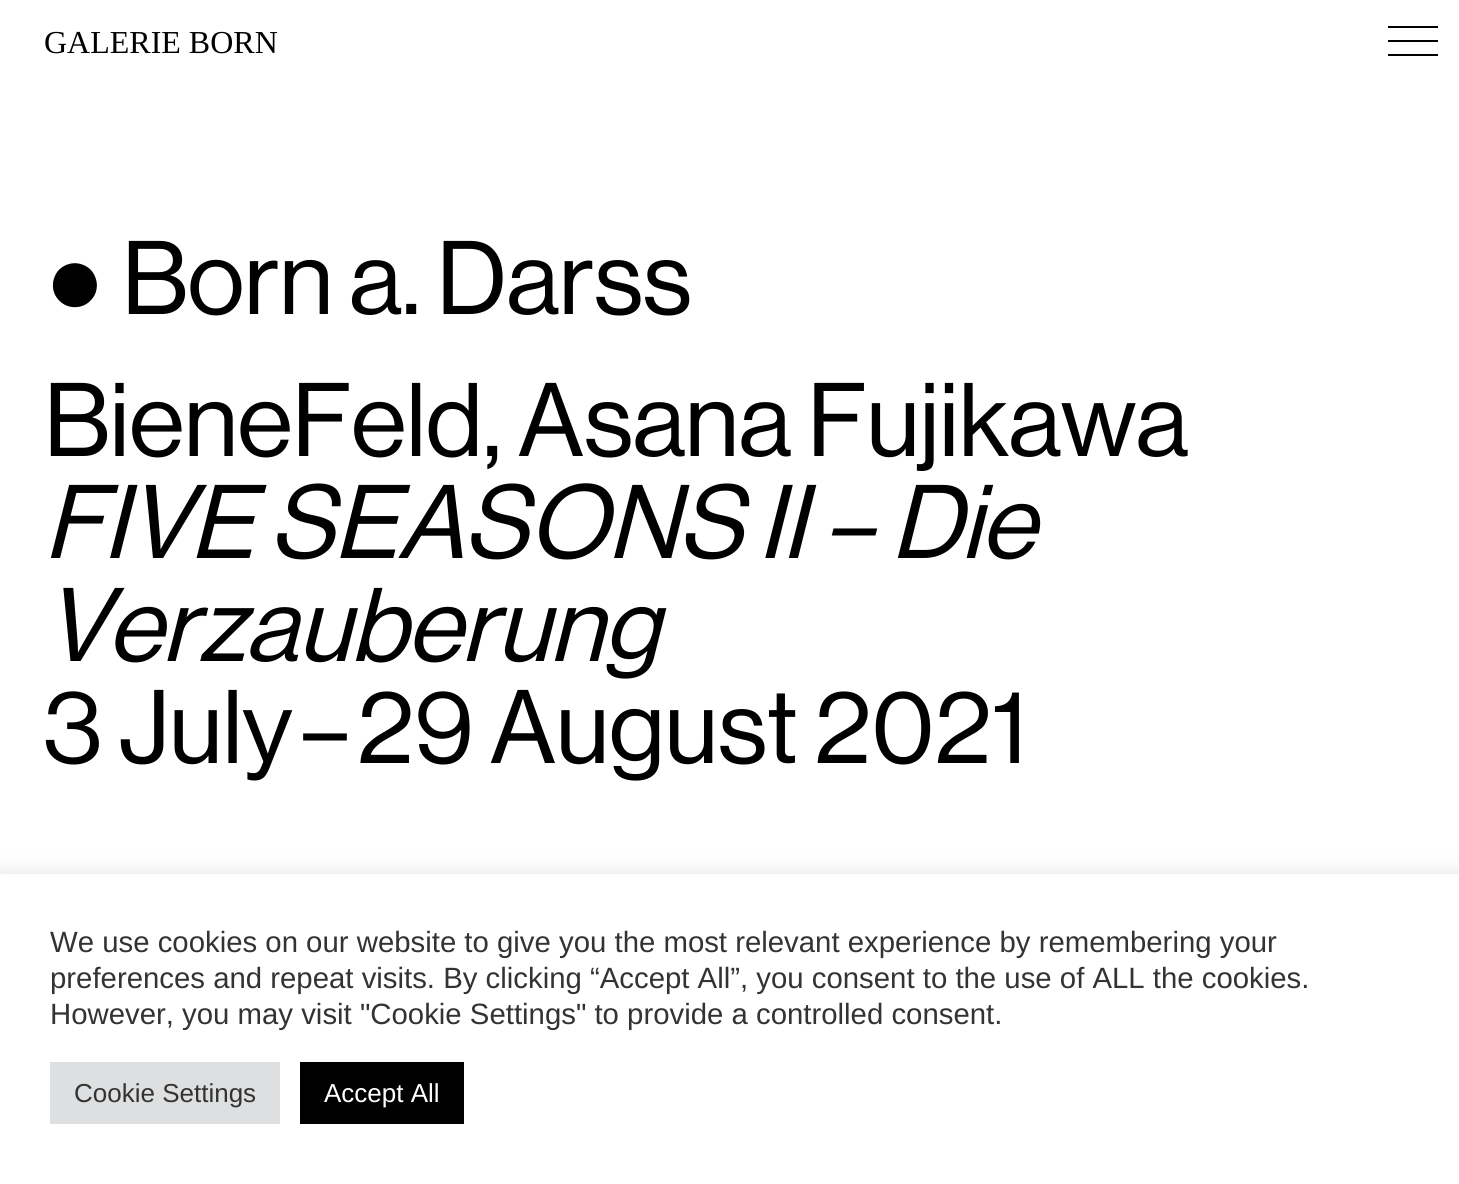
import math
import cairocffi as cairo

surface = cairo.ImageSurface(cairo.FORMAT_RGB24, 1459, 1184)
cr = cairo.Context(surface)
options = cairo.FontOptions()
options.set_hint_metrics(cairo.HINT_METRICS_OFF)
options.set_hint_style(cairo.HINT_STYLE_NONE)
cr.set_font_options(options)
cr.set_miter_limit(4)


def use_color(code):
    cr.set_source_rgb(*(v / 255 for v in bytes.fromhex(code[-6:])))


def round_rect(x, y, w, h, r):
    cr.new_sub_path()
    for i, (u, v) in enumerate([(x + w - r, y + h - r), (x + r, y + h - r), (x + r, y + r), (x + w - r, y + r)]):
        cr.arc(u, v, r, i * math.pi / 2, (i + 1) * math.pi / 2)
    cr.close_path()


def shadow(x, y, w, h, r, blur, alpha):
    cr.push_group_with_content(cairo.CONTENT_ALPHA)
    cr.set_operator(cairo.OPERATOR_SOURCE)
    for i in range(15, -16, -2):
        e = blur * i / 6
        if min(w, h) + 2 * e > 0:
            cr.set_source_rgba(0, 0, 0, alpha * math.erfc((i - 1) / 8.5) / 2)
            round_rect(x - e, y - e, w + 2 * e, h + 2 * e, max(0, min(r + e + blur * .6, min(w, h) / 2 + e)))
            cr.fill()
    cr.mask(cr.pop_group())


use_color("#ffffff")
cr.paint()
cr.select_font_face("Liberation Serif")
cr.set_font_size(32)
use_color("#000000")
cr.move_to(44, 53)
cr.show_text("GALERIE BORN")
cr.rectangle(1388, 40, 50, 2)
cr.fill()
cr.rectangle(1388, 26, 50, 2)
cr.fill()
cr.rectangle(1388, 54, 50, 2)
cr.fill()
cr.set_font_size(102.25)
cr.move_to(44, 314)
cr.show_text("●")
cr.select_font_face("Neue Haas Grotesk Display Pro")
cr.move_to(122, 314)
cr.show_text("Born a. Darss")
cr.move_to(44, 456)
cr.show_text("BieneFeld, Asana Fujikawa")
cr.select_font_face("Neue Haas Grotesk Display Pro", cairo.FONT_SLANT_ITALIC)
cr.move_to(44, 558)
cr.show_text("FIVE SEASONS II – Die")
cr.move_to(44, 661)
cr.show_text("Verzauberung")
cr.select_font_face("Neue Haas Grotesk Display Pro")
cr.move_to(44, 763)
cr.show_text("3 July – 29 August 2021")
use_color("#acabab")
shadow(0, 872, 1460, 310, 0, 10, 0.3)
use_color("#ffffff")
cr.rectangle(0, 874, 1459, 310)
cr.fill()
cr.select_font_face("Liberation Sans")
cr.set_font_size(29.35)
use_color("#333333")
cr.move_to(50, 952)
cr.show_text("We use cookies on our website to give you the most relevant experience by remembering your")
cr.move_to(50, 988)
cr.show_text("preferences and repeat visits. By clicking “Accept All”, you consent to the use of ALL the cookies.")
cr.move_to(50, 1024)
cr.show_text("However, you may visit \"Cookie Settings\" to provide a controlled consent.")
use_color("#dedfe0")
cr.rectangle(50, 1062, 230, 62)
cr.fill()
cr.set_font_size(26)
use_color("#333333")
cr.move_to(74, 1102)
cr.show_text("Cookie Settings")
use_color("#000000")
cr.rectangle(300, 1062, 164, 62)
cr.fill()
use_color("#ffffff")
cr.move_to(324, 1102)
cr.show_text("Accept All")
surface.write_to_png("result.png")
